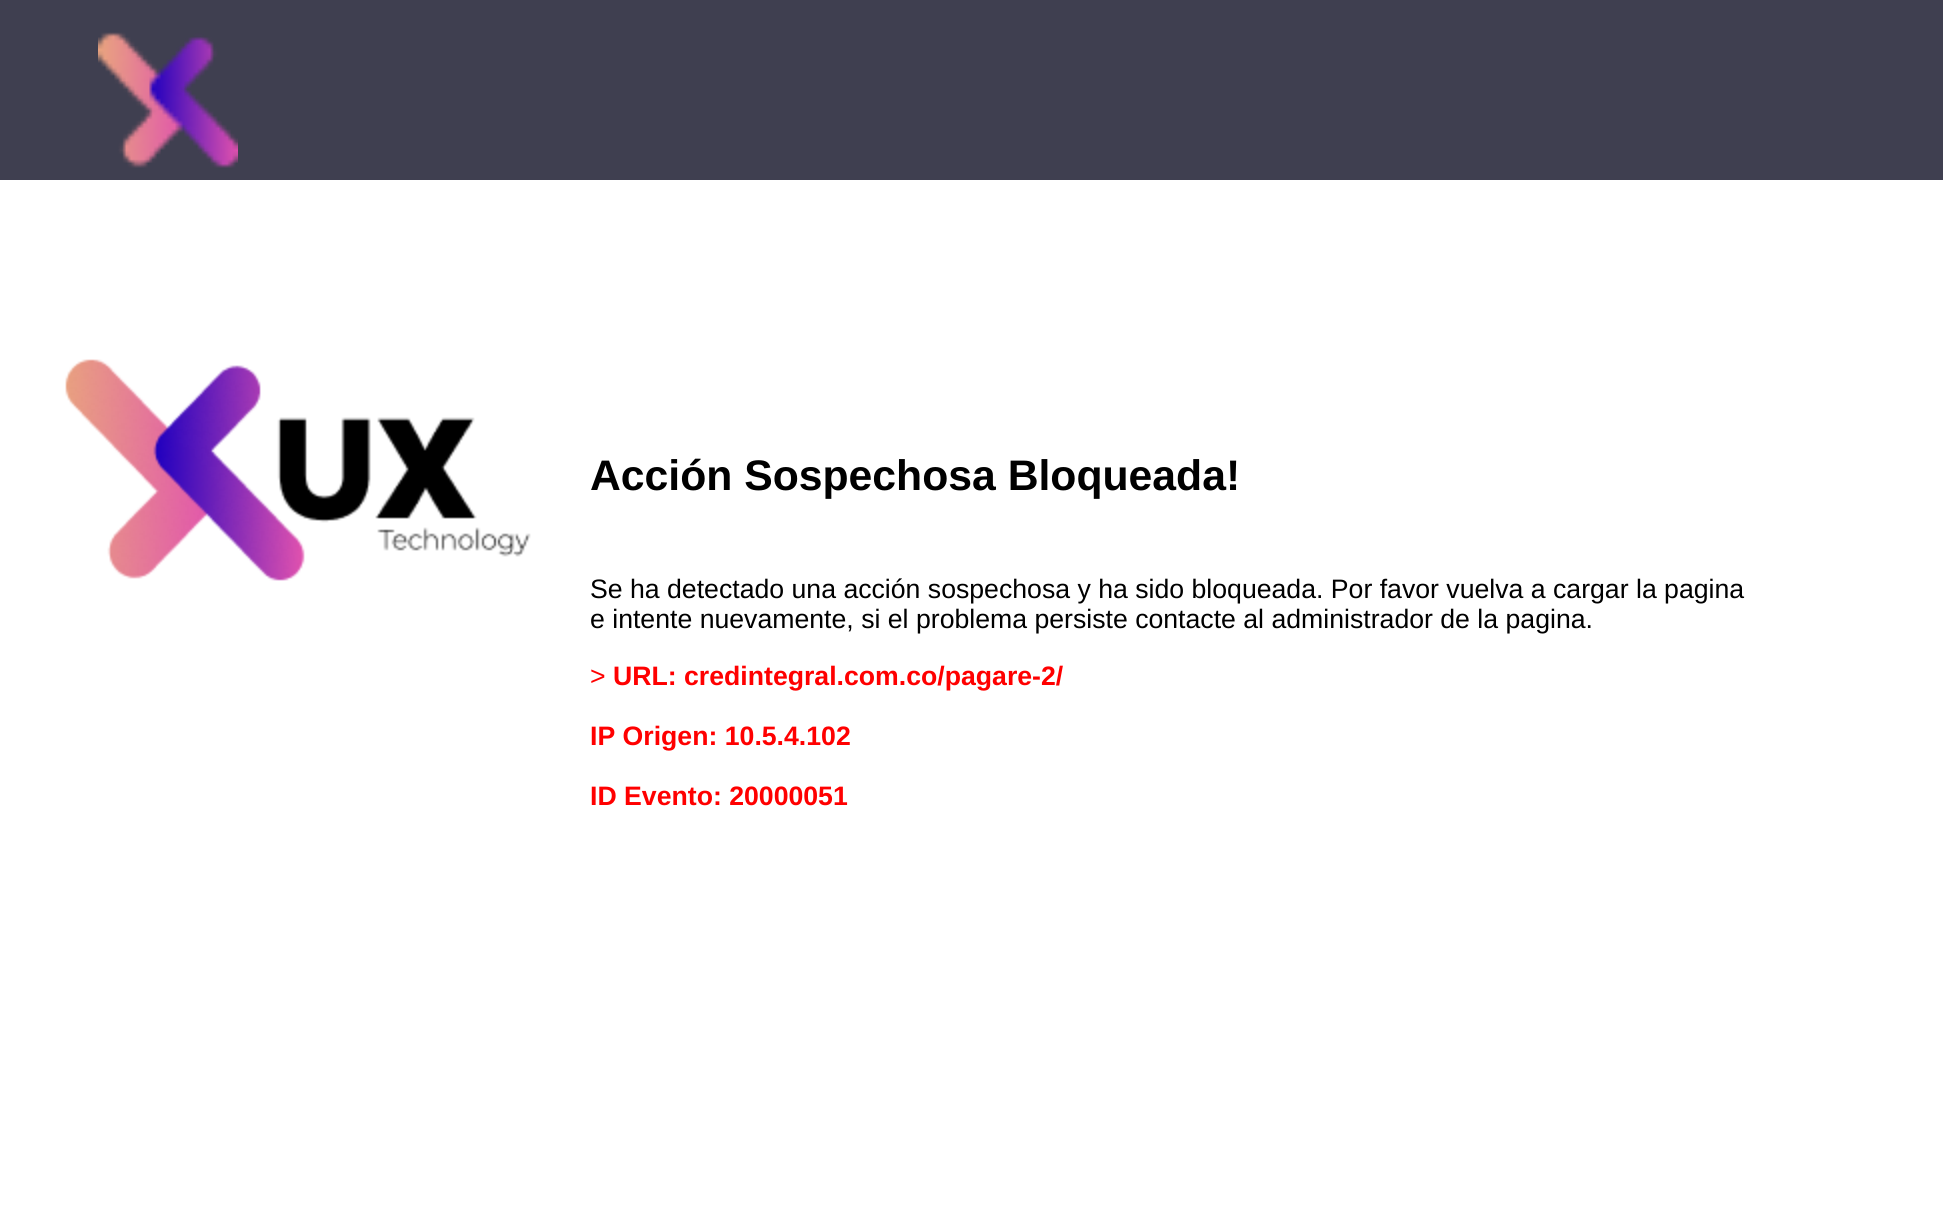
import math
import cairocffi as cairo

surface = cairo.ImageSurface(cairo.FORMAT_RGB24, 1943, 1229)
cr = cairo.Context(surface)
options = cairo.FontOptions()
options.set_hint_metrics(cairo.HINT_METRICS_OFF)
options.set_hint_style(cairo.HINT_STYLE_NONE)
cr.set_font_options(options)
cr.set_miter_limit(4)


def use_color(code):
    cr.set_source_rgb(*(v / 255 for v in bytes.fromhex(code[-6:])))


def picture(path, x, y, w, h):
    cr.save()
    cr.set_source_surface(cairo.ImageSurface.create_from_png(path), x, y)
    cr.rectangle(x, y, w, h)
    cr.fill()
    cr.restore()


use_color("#ffffff")
cr.paint()
use_color("#3f3f50")
cr.rectangle(0, 0, 1943, 180)
cr.fill()
picture("img1.png", 98, 32, 140, 136)
picture("img2.png", 65, 359, 466, 222)
cr.select_font_face("Liberation Sans", cairo.FONT_SLANT_NORMAL, cairo.FONT_WEIGHT_BOLD)
cr.set_font_size(42.7)
use_color("#000000")
cr.move_to(590, 490)
cr.show_text("Acción Sospechosa Bloqueada!")
cr.select_font_face("Liberation Sans")
cr.set_font_size(26.65)
cr.move_to(590, 598)
cr.show_text("Se ha detectado una acción sospechosa y ha sido bloqueada. Por favor vuelva a cargar la pagina")
cr.move_to(590, 628)
cr.show_text("e intente nuevamente, si el problema persiste contacte al administrador de la pagina.")
use_color("#ff0000")
cr.move_to(590, 685)
cr.show_text(">")
cr.select_font_face("Liberation Sans", cairo.FONT_SLANT_NORMAL, cairo.FONT_WEIGHT_BOLD)
cr.move_to(613, 685)
cr.show_text("URL: credintegral.com.co/pagare-2/")
cr.move_to(590, 745)
cr.show_text("IP Origen: 10.5.4.102")
cr.move_to(590, 805)
cr.show_text("ID Evento: 20000051")
surface.write_to_png("result.png")
